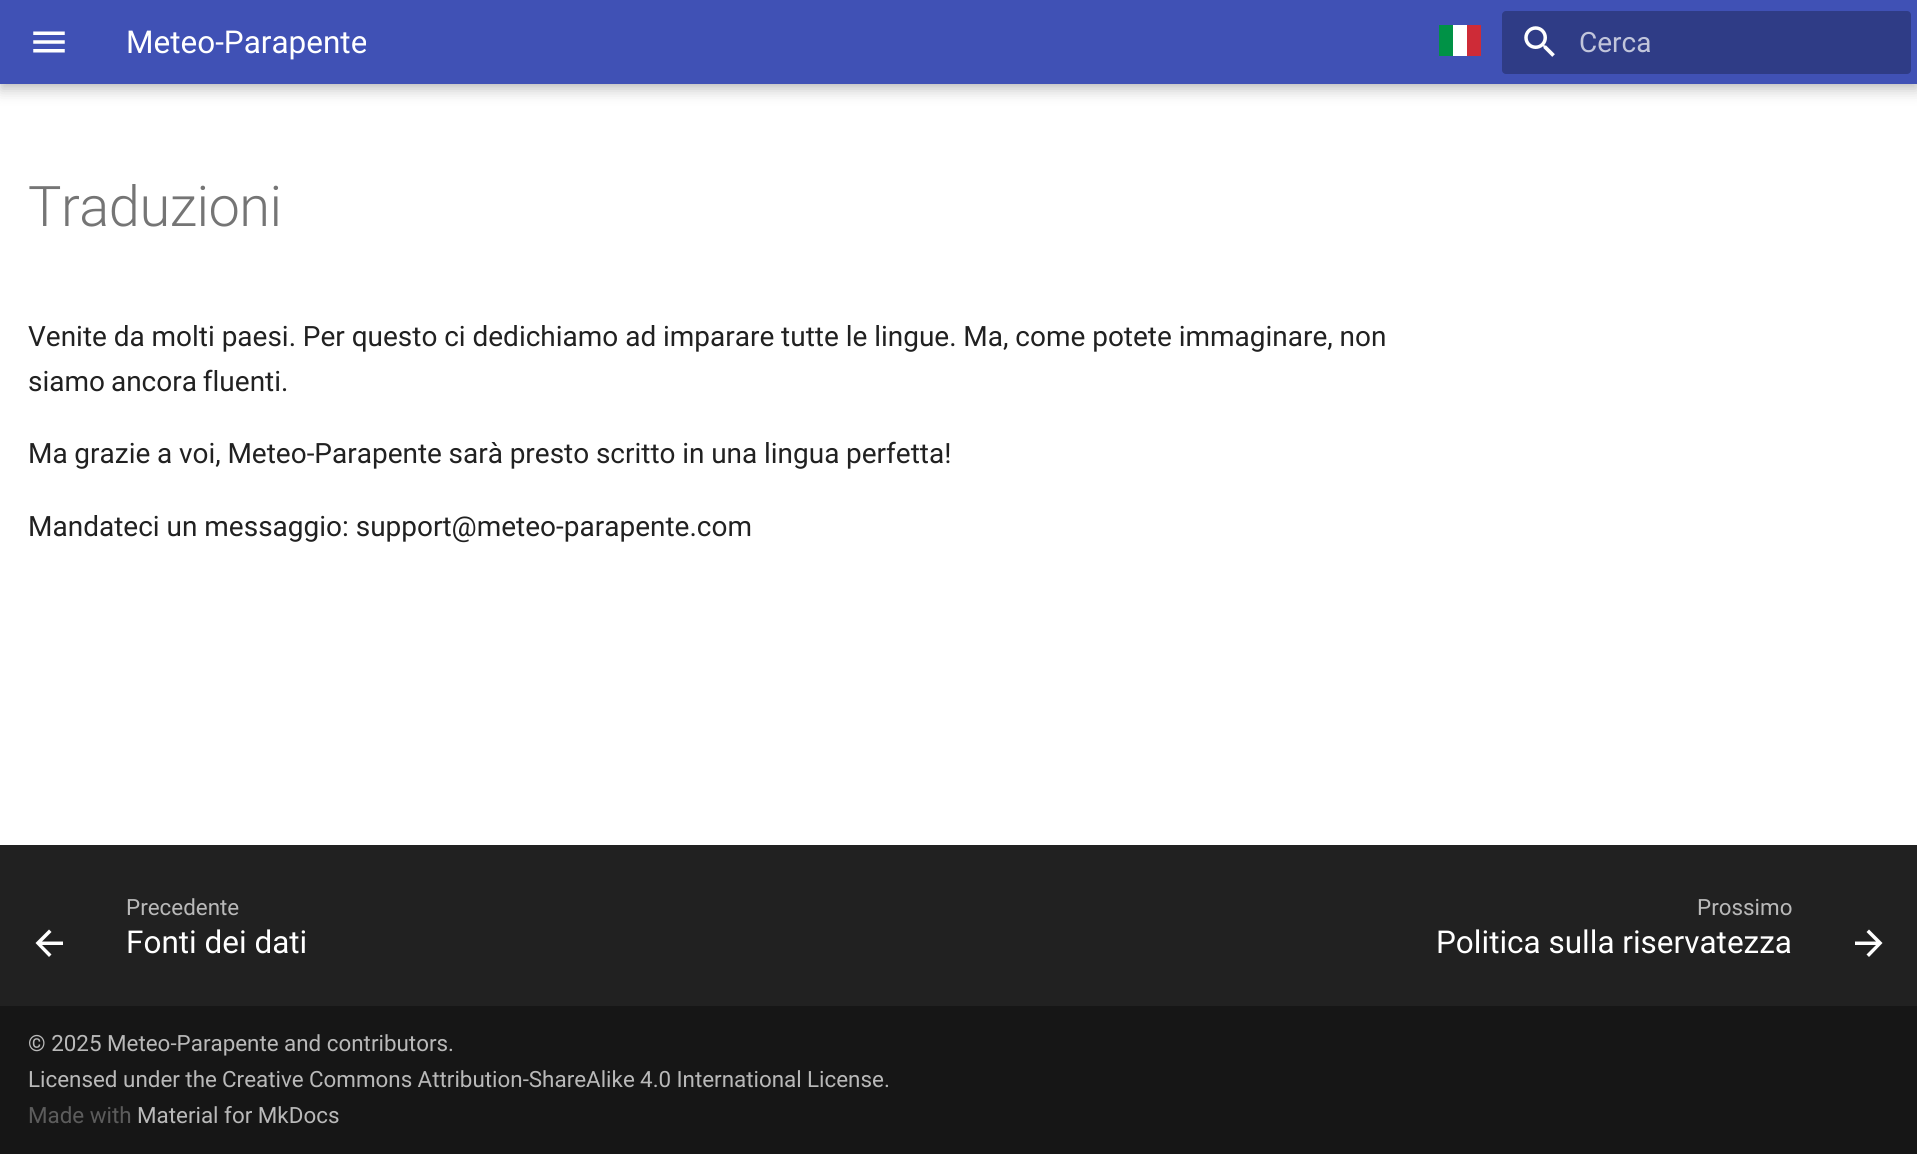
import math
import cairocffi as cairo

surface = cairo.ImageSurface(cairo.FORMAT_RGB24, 1917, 1154)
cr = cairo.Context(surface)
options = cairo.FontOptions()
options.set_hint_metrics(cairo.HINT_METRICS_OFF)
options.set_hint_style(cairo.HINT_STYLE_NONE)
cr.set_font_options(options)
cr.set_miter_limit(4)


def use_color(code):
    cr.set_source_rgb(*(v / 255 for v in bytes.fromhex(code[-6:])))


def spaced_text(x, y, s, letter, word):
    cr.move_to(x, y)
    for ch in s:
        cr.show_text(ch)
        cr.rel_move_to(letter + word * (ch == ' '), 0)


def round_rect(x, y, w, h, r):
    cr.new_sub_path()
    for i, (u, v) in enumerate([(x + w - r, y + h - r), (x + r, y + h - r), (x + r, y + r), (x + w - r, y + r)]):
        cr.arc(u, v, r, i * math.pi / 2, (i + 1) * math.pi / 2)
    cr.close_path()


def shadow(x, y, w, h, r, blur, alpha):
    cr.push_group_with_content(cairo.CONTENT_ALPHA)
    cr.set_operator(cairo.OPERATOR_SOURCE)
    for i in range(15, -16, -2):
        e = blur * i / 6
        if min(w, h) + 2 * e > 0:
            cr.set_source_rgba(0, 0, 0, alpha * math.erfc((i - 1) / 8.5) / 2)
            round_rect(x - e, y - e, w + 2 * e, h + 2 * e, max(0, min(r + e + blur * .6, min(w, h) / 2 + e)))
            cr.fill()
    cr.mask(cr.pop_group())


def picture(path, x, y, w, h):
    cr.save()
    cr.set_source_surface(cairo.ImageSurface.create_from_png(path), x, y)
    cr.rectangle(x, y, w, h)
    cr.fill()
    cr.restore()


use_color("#ffffff")
cr.paint()
use_color("#000000")
shadow(0, 7, 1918, 84, 0, 7, 0.2)
shadow(0, 0, 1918, 84, 0, 3.5, 0.1)
use_color("#4051b5")
cr.rectangle(0, 0, 1917, 84)
cr.fill()
picture("img1.png", 33, 31, 32, 22)
cr.save()
cr.rectangle(126, 0, 240, 84)
cr.clip()
cr.select_font_face("Roboto")
cr.set_font_size(31.5)
use_color("#ffffff")
cr.move_to(126, 53)
cr.show_text("Meteo-Parapente")
cr.restore()
use_color("#009246")
cr.rectangle(1439, 25, 14, 31)
cr.fill()
use_color("#ffffff")
cr.rectangle(1453, 25, 14, 31)
cr.fill()
use_color("#ce2b37")
cr.rectangle(1467, 25, 14, 31)
cr.fill()
use_color("#2f3c86")
round_rect(1502, 11, 409, 63, 4)
cr.fill()
picture("img2.png", 1524, 26, 31, 31)
cr.select_font_face("Roboto")
cr.set_font_size(28)
use_color("#c1c5db")
cr.move_to(1579, 52)
cr.show_text("Cerca")
cr.select_font_face("Roboto Light")
cr.set_font_size(56)
use_color("#757575")
spaced_text(28, 226, "Traduzioni", -0.5, 0)
cr.select_font_face("Roboto")
cr.set_font_size(28)
use_color("#212121")
spaced_text(28, 346, "Venite da molti paesi. Per questo ci dedichiamo ad imparare tutte le lingue. Ma, come potete immaginare, non", 0, -0.1)
spaced_text(28, 391, "siamo ancora fluenti.", 0, -1)
spaced_text(28, 463, "Ma grazie a voi, Meteo-Parapente sarà presto scritto in una lingua perfetta!", 0, -0.25)
cr.move_to(28, 536)
cr.show_text("Mandateci un messaggio: support@meteo-parapente.com")
cr.rectangle(0, 845, 1917, 161)
cr.fill()
use_color("#ffffff")
cr.new_path()
cr.move_to(63, 941.5)
cr.line_to(63, 945)
cr.line_to(42, 945)
cr.line_to(51.5, 954.5)
cr.line_to(49, 957)
cr.line_to(35.5, 943)
cr.line_to(49, 929.5)
cr.line_to(51.5, 932)
cr.line_to(42, 941.5)
cr.close_path()
cr.fill()
cr.set_font_size(22.4)
use_color("#b9b9b9")
cr.move_to(126, 915)
cr.show_text("Precedente")
cr.set_font_size(31.5)
use_color("#ffffff")
cr.move_to(126, 953)
cr.show_text("Fonti dei dati")
cr.set_font_size(22.4)
use_color("#b9b9b9")
cr.move_to(1697, 915)
cr.show_text("Prossimo")
cr.set_font_size(31.5)
use_color("#ffffff")
cr.move_to(1436, 953)
cr.show_text("Politica sulla riservatezza")
cr.new_path()
cr.move_to(1855, 941.5)
cr.line_to(1855, 945)
cr.line_to(1876, 945)
cr.line_to(1866.5, 954.5)
cr.line_to(1869, 957)
cr.line_to(1882.5, 943)
cr.line_to(1869, 929.5)
cr.line_to(1866.5, 932)
cr.line_to(1876, 941.5)
cr.close_path()
cr.fill()
use_color("#161616")
cr.rectangle(0, 1006, 1917, 148)
cr.fill()
cr.set_font_size(22.4)
use_color("#b9b9b9")
cr.move_to(28, 1051)
cr.show_text("© 2025 Meteo-Parapente")
cr.move_to(284, 1051)
cr.show_text("and contributors.")
cr.move_to(28, 1087)
cr.show_text("Licensed under the")
spaced_text(222, 1087, "Creative Commons Attribution-ShareAlike 4.0 International License", 0, -0.25)
cr.move_to(884, 1087)
cr.show_text(".")
use_color("#5c5c5c")
cr.move_to(28, 1123)
cr.show_text("Made with")
use_color("#b9b9b9")
cr.move_to(137, 1123)
cr.show_text("Material for MkDocs")
surface.write_to_png("result.png")
